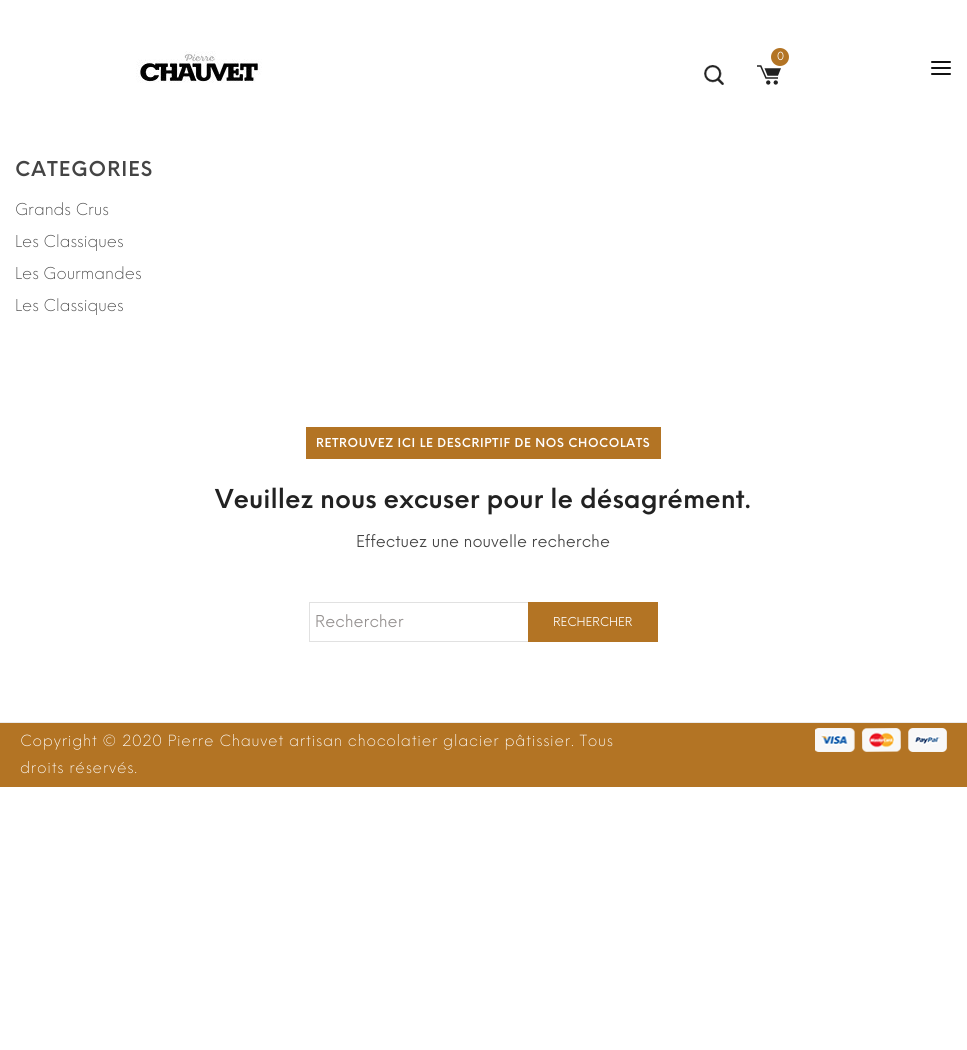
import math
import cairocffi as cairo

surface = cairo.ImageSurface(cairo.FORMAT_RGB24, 967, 1050)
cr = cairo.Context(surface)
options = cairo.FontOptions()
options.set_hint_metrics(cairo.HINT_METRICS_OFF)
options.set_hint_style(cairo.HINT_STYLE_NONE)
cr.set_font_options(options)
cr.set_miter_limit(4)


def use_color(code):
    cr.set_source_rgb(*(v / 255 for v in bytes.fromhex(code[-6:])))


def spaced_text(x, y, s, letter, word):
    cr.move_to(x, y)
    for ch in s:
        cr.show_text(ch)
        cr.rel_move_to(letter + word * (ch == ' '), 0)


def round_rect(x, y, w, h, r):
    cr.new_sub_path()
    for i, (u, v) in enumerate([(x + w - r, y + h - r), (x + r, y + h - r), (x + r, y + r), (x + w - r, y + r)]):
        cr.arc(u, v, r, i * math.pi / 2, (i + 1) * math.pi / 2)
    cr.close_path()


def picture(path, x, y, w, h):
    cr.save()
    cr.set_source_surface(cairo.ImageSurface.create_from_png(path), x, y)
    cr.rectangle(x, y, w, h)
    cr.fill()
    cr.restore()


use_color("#ffffff")
cr.paint()
picture("img1.png", 136, 51, 126, 32)
picture("img2.png", 757, 65, 24, 20)
use_color("#b37424")
cr.arc(780, 57, 9, 0, 2 * math.pi)
cr.fill()
cr.select_font_face("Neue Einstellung")
cr.set_font_size(11)
use_color("#ffffff")
cr.move_to(777, 60)
cr.show_text("0")
picture("img3.png", 704, 65, 20, 20)
use_color("#111111")
round_rect(931, 61, 20, 2, 1)
cr.fill()
round_rect(931, 67, 20, 2, 1)
cr.fill()
round_rect(931, 73, 20, 2, 1)
cr.fill()
cr.select_font_face("Neue Einstellung SemiBold")
cr.set_font_size(20)
use_color("#444444")
spaced_text(15, 176, "CATEGORIES", 1, 0)
cr.select_font_face("Neue Einstellung Light")
cr.set_font_size(16)
cr.move_to(15, 215)
cr.show_text("Grands Crus")
cr.move_to(15, 247)
cr.show_text("Les Classiques")
cr.move_to(15, 279)
cr.show_text("Les Gourmandes")
cr.move_to(15, 311)
cr.show_text("Les Classiques")
use_color("#b37424")
cr.rectangle(306, 427, 355, 32)
cr.fill()
cr.select_font_face("Neue Einstellung SemiBold")
cr.set_font_size(12)
use_color("#ffffff")
spaced_text(316, 447, "RETROUVEZ ICI LE DESCRIPTIF DE NOS CHOCOLATS", 0.6, 0)
cr.set_font_size(25.4)
use_color("#222222")
cr.move_to(215, 508)
cr.show_text("Veuillez nous excuser pour le désagrément.")
cr.select_font_face("Neue Einstellung")
cr.set_font_size(16)
use_color("#444444")
cr.move_to(356, 547)
cr.show_text("Effectuez une nouvelle recherche")
cr.rectangle(309.5, 602.5, 219, 39)
use_color("#e1e1e1")
cr.set_line_width(1)
cr.stroke()
use_color("#94908f")
cr.move_to(315, 627)
cr.show_text("Rechercher")
use_color("#b37424")
cr.rectangle(528, 602, 130, 40)
cr.fill()
cr.set_font_size(12)
use_color("#ffffff")
cr.move_to(553, 626)
cr.show_text("RECHERCHER")
use_color("#b37424")
cr.rectangle(0, 723, 967, 64)
cr.fill()
use_color("#ebebeb")
cr.rectangle(0, 722, 967, 1)
cr.fill()
cr.select_font_face("Neue Einstellung Light")
cr.set_font_size(15)
use_color("#ffffff")
spaced_text(20, 746, "Copyright © 2020 Pierre Chauvet artisan chocolatier glacier pâtissier. Tous", 0.75, 0)
spaced_text(20, 773, "droits réservés.", 0.75, 0)
picture("img4.png", 815, 728, 40, 24)
picture("img5.png", 861, 728, 40, 24)
picture("img6.png", 908, 728, 39, 24)
surface.write_to_png("result.png")
